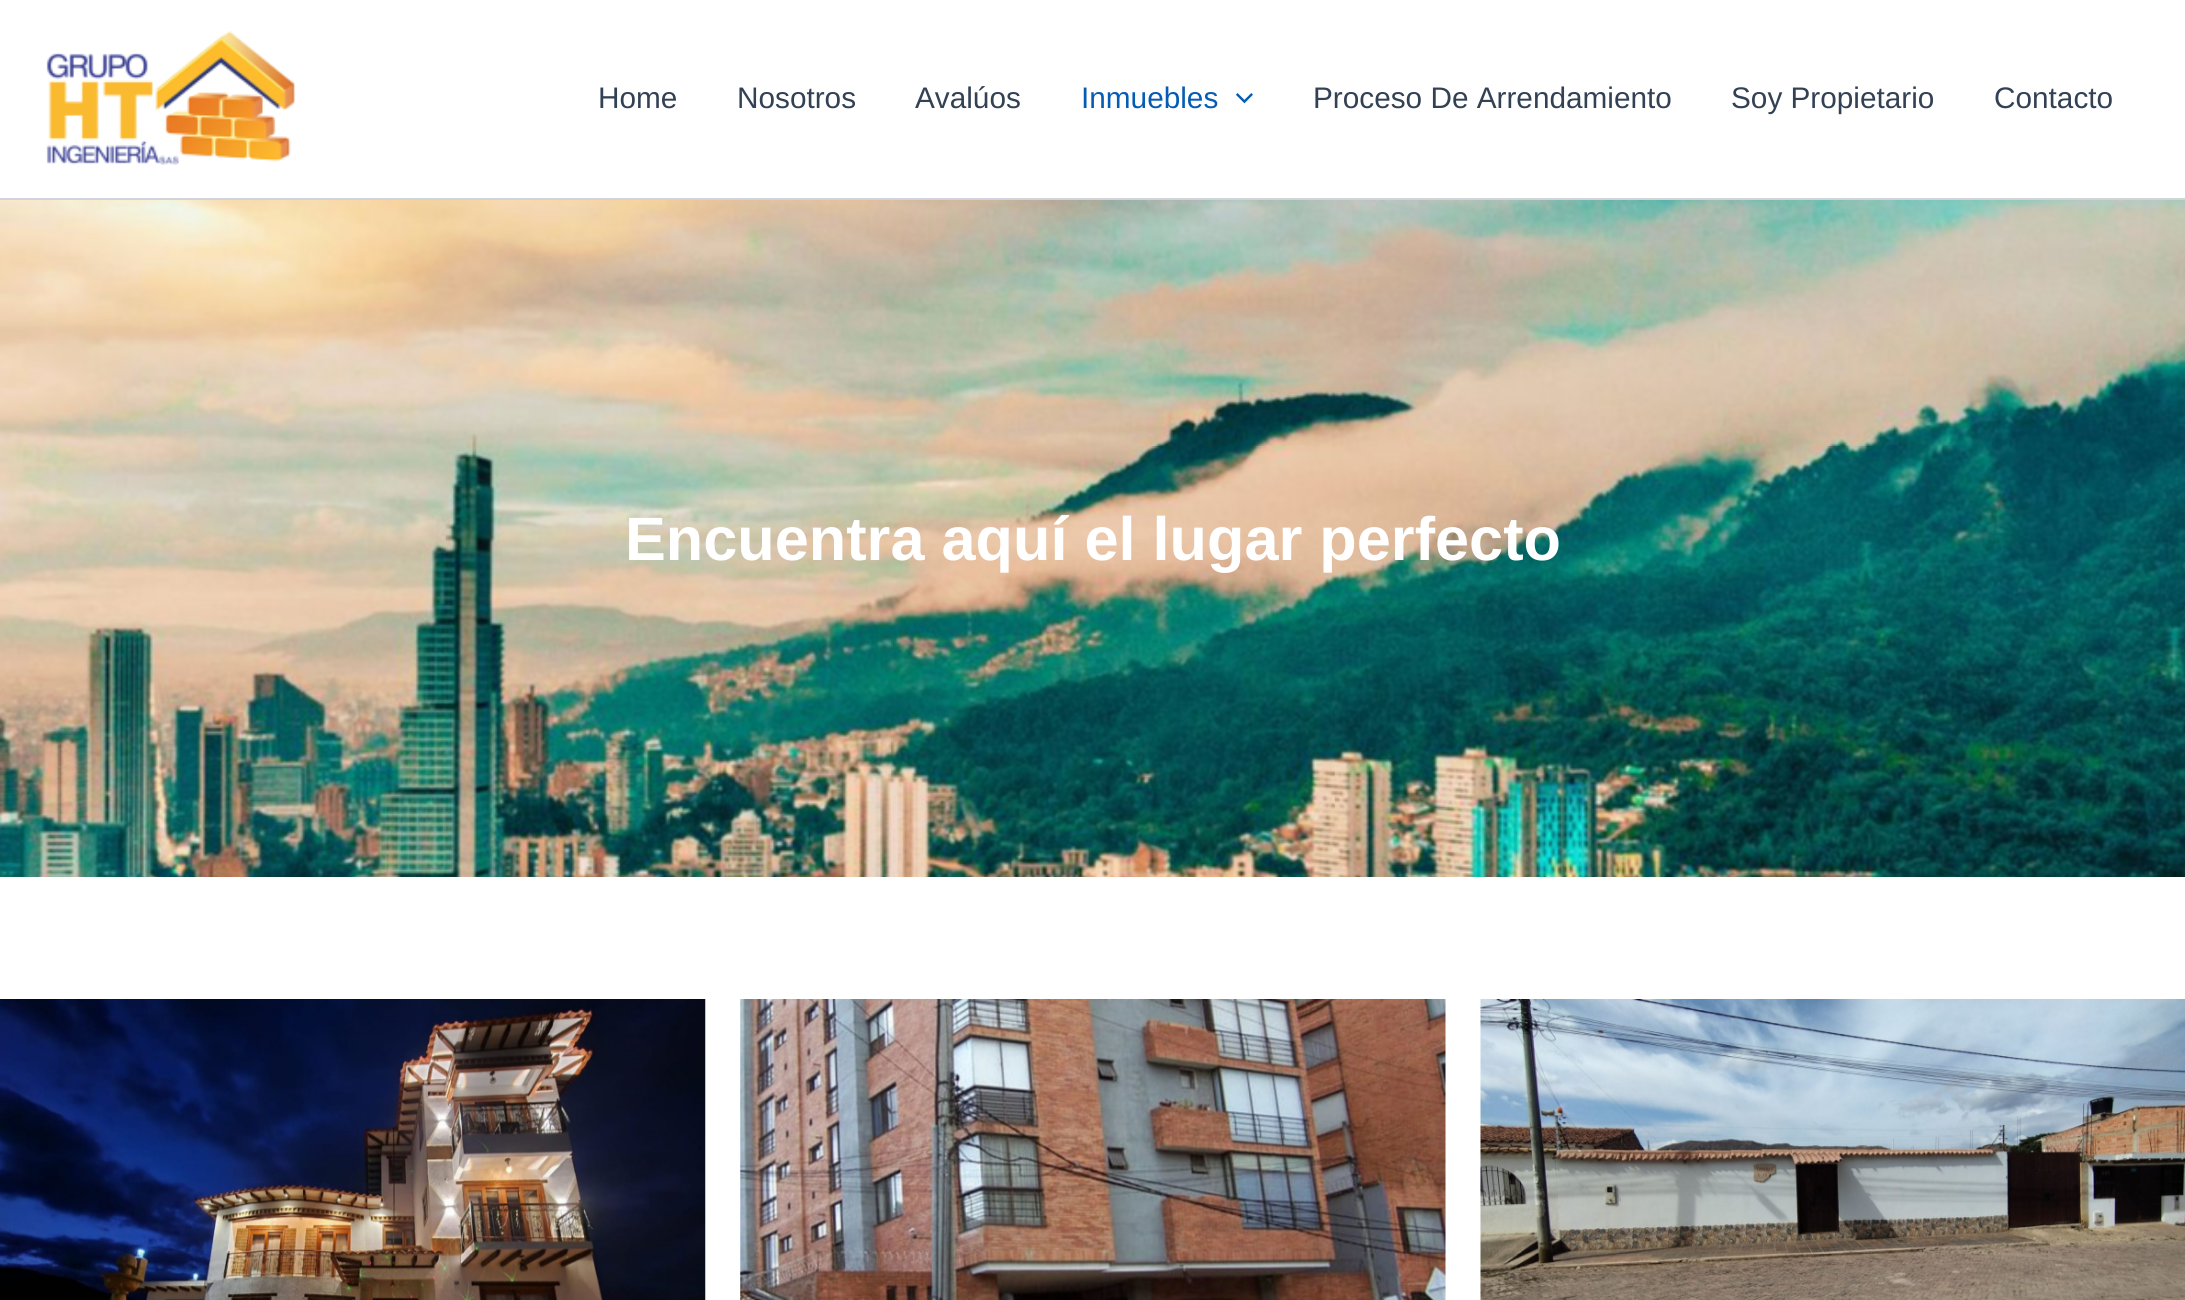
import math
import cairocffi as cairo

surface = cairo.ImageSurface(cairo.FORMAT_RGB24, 2185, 1300)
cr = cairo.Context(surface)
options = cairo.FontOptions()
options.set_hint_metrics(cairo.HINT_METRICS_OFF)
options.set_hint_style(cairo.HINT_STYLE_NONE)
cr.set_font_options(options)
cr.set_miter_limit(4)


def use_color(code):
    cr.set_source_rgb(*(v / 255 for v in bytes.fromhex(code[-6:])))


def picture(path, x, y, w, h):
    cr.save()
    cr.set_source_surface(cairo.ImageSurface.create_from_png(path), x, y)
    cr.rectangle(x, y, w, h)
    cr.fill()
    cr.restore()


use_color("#ffffff")
cr.paint()
use_color("#d1d5db")
cr.rectangle(0, 198, 2185, 2)
cr.fill()
picture("img1.png", 46, 31, 250, 134)
cr.select_font_face("Liberation Sans")
cr.set_font_size(29.75)
use_color("#334155")
cr.move_to(598, 108)
cr.show_text("Home")
cr.move_to(737, 108)
cr.show_text("Nosotros")
cr.move_to(915, 108)
cr.show_text("Avalúos")
use_color("#045cb4")
cr.move_to(1081, 108)
cr.show_text("Inmuebles")
picture("img2.png", 1236, 93, 17, 11)
use_color("#334155")
cr.move_to(1313, 108)
cr.show_text("Proceso De Arrendamiento")
cr.move_to(1731, 108)
cr.show_text("Soy Propietario")
cr.move_to(1994, 108)
cr.show_text("Contacto")
picture("img3.png", 0, 200, 2185, 677)
cr.select_font_face("Liberation Sans", cairo.FONT_SLANT_NORMAL, cairo.FONT_WEIGHT_BOLD)
cr.set_font_size(61.25)
use_color("#ffffff")
cr.move_to(625, 560)
cr.show_text("Encuentra aquí el lugar perfecto")
picture("img4.png", 0, 999, 706, 301)
picture("img5.png", 740, 999, 706, 301)
picture("img6.png", 1480, 999, 705, 301)
surface.write_to_png("result.png")
